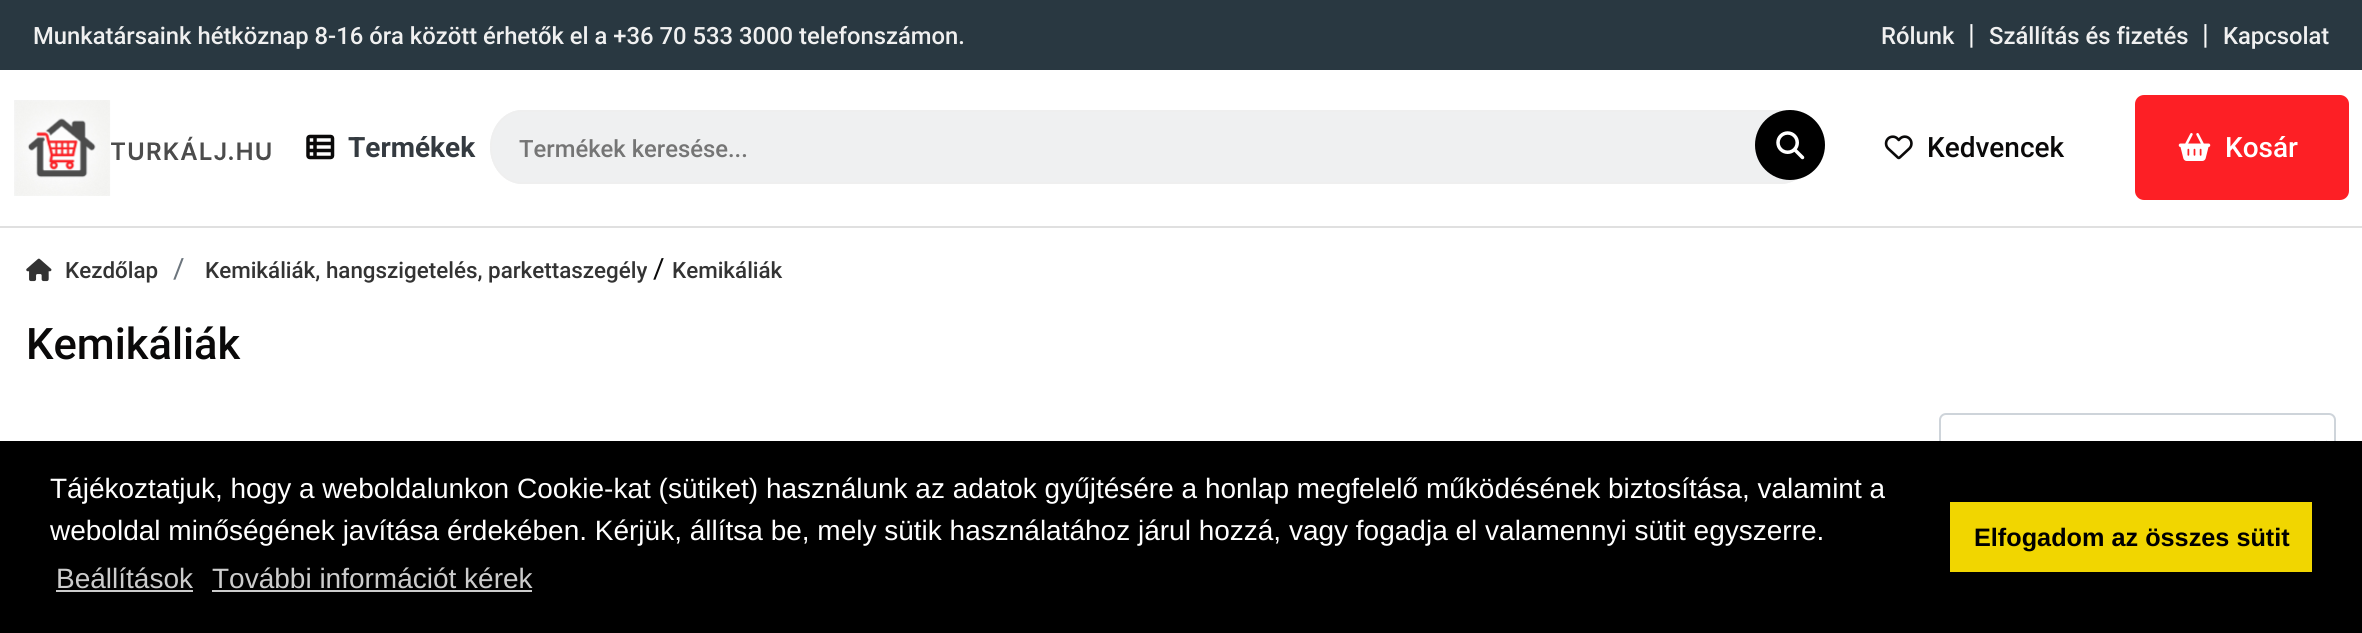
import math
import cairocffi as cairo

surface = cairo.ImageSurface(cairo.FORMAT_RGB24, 2362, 633)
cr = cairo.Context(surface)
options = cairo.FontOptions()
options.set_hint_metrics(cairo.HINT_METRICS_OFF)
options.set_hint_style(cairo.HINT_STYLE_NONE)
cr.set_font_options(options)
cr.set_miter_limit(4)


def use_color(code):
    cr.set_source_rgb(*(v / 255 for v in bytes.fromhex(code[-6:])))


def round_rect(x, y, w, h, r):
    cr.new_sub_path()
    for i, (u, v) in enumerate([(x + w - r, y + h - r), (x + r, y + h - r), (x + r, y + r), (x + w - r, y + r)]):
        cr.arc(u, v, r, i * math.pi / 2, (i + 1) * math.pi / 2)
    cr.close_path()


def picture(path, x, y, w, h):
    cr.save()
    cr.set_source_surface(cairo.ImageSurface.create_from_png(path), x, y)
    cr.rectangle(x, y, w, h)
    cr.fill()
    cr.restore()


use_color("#ffffff")
cr.paint()
use_color("#293841")
cr.rectangle(0, 0, 2362, 70)
cr.fill()
cr.select_font_face("Roboto Medium")
cr.set_font_size(23.8)
use_color("#f0f0f0")
cr.move_to(33, 44)
cr.show_text("Munkatársaink hétköznap 8-16 óra között érhetők el a +36 70 533 3000 telefonszámon.")
cr.move_to(1881, 44)
cr.show_text("Rólunk")
cr.select_font_face("Roboto")
cr.set_font_size(28)
use_color("#f9f9f9")
cr.move_to(1968, 44)
cr.show_text("|")
cr.select_font_face("Roboto Medium")
cr.set_font_size(23.8)
use_color("#f0f0f0")
cr.move_to(1989, 44)
cr.show_text("Szállítás és fizetés")
cr.select_font_face("Roboto")
cr.set_font_size(28)
use_color("#f9f9f9")
cr.move_to(2202, 44)
cr.show_text("|")
cr.select_font_face("Roboto Medium")
cr.set_font_size(23.8)
use_color("#f0f0f0")
cr.move_to(2223, 44)
cr.show_text("Kapcsolat")
use_color("#e0e0e0")
cr.rectangle(0, 226, 2362, 2)
cr.fill()
picture("img1.png", 14, 100, 257, 96)
picture("img2.png", 306, 134, 29, 26)
cr.select_font_face("Roboto", cairo.FONT_SLANT_NORMAL, cairo.FONT_WEIGHT_BOLD)
cr.set_font_size(28)
use_color("#343a40")
cr.move_to(348, 157)
cr.show_text("Termékek")
use_color("#eff0f1")
cr.new_path()
cr.move_to(522, 110)
cr.line_to(1781, 110)
cr.curve_to(1799, 110, 1813, 127, 1813, 147)
cr.curve_to(1813, 167, 1799, 184, 1781, 184)
cr.line_to(522, 184)
cr.curve_to(504, 184, 490, 167, 490, 147)
cr.curve_to(490, 127, 504, 110, 522, 110)
cr.close_path()
cr.fill()
cr.new_path()
cr.move_to(522, 111)
cr.line_to(1781, 111)
cr.curve_to(1798, 111, 1812, 127, 1812, 147)
cr.curve_to(1812, 167, 1798, 183, 1781, 183)
cr.line_to(522, 183)
cr.curve_to(505, 183, 491, 167, 491, 147)
cr.curve_to(491, 127, 505, 111, 522, 111)
cr.close_path()
use_color("#efefef")
cr.set_line_width(1.8)
cr.stroke()
cr.select_font_face("Roboto Medium")
cr.set_font_size(23.8)
use_color("#757575")
cr.move_to(519, 157)
cr.show_text("Termékek keresése...")
use_color("#000000")
cr.new_path()
cr.arc(1790, 145, 35, 0, 2 * math.pi)
cr.fill()
picture("img3.png", 1776, 131, 29, 29)
picture("img4.png", 1884, 135, 29, 25)
cr.set_font_size(28)
use_color("#0a0909")
cr.move_to(1927, 157)
cr.show_text("Kedvencek")
use_color("#fd1f25")
round_rect(2135, 95, 214, 105, 9)
cr.fill()
picture("img5.png", 2178, 133, 33, 28)
use_color("#ffffff")
cr.move_to(2225, 157)
cr.show_text("Kosár")
picture("img6.png", 26, 258, 26, 24)
cr.set_font_size(22.4)
use_color("#333333")
cr.move_to(65, 278)
cr.show_text("Kezdőlap")
cr.select_font_face("Roboto")
cr.set_font_size(28)
use_color("#6c757d")
cr.move_to(173, 278)
cr.show_text("/")
cr.select_font_face("Roboto Medium")
cr.set_font_size(22.4)
use_color("#333333")
cr.move_to(205, 278)
cr.show_text("Kemikáliák, hangszigetelés, parkettaszegély")
cr.select_font_face("Roboto")
cr.set_font_size(28)
use_color("#0a0909")
cr.move_to(653, 278)
cr.show_text("/")
cr.select_font_face("Roboto Medium")
cr.set_font_size(22.4)
use_color("#333333")
cr.move_to(672, 278)
cr.show_text("Kemikáliák")
cr.set_font_size(43.5)
use_color("#0a0909")
cr.move_to(26, 359)
cr.show_text("Kemikáliák")
round_rect(1940, 414, 395, 65, 6)
use_color("#ced4da")
cr.set_line_width(2)
cr.stroke()
cr.new_path()
cr.move_to(2313.5, 442)
cr.line_to(2320.5, 449)
cr.line_to(2327.5, 442)
use_color("#495057")
cr.set_line_width(3.5)
cr.stroke()
use_color("#000000")
cr.rectangle(0, 441, 2362, 192)
cr.fill()
cr.select_font_face("Liberation Sans")
cr.set_font_size(28)
use_color("#ffffff")
cr.move_to(50, 498)
cr.show_text("Tájékoztatjuk, hogy a weboldalunkon Cookie-kat (sütiket) használunk az adatok gyűjtésére a honlap megfelelő működésének biztosítása, valamint a")
cr.move_to(50, 540)
cr.show_text("weboldal minőségének javítása érdekében. Kérjük, állítsa be, mely sütik használatához járul hozzá, vagy fogadja el valamennyi sütit egyszerre.")
use_color("#cccccc")
cr.move_to(56, 588)
cr.show_text("Beállítások")
cr.rectangle(56, 590, 137, 2)
cr.fill()
cr.move_to(212, 588)
cr.show_text("További információt kérek")
cr.rectangle(212, 590, 320, 2)
cr.fill()
use_color("#f1d600")
cr.rectangle(1950, 502, 362, 70)
cr.fill()
cr.select_font_face("Liberation Sans", cairo.FONT_SLANT_NORMAL, cairo.FONT_WEIGHT_BOLD)
cr.set_font_size(25.25)
use_color("#000000")
cr.move_to(1974, 546)
cr.show_text("Elfogadom az összes sütit")
surface.write_to_png("result.png")
